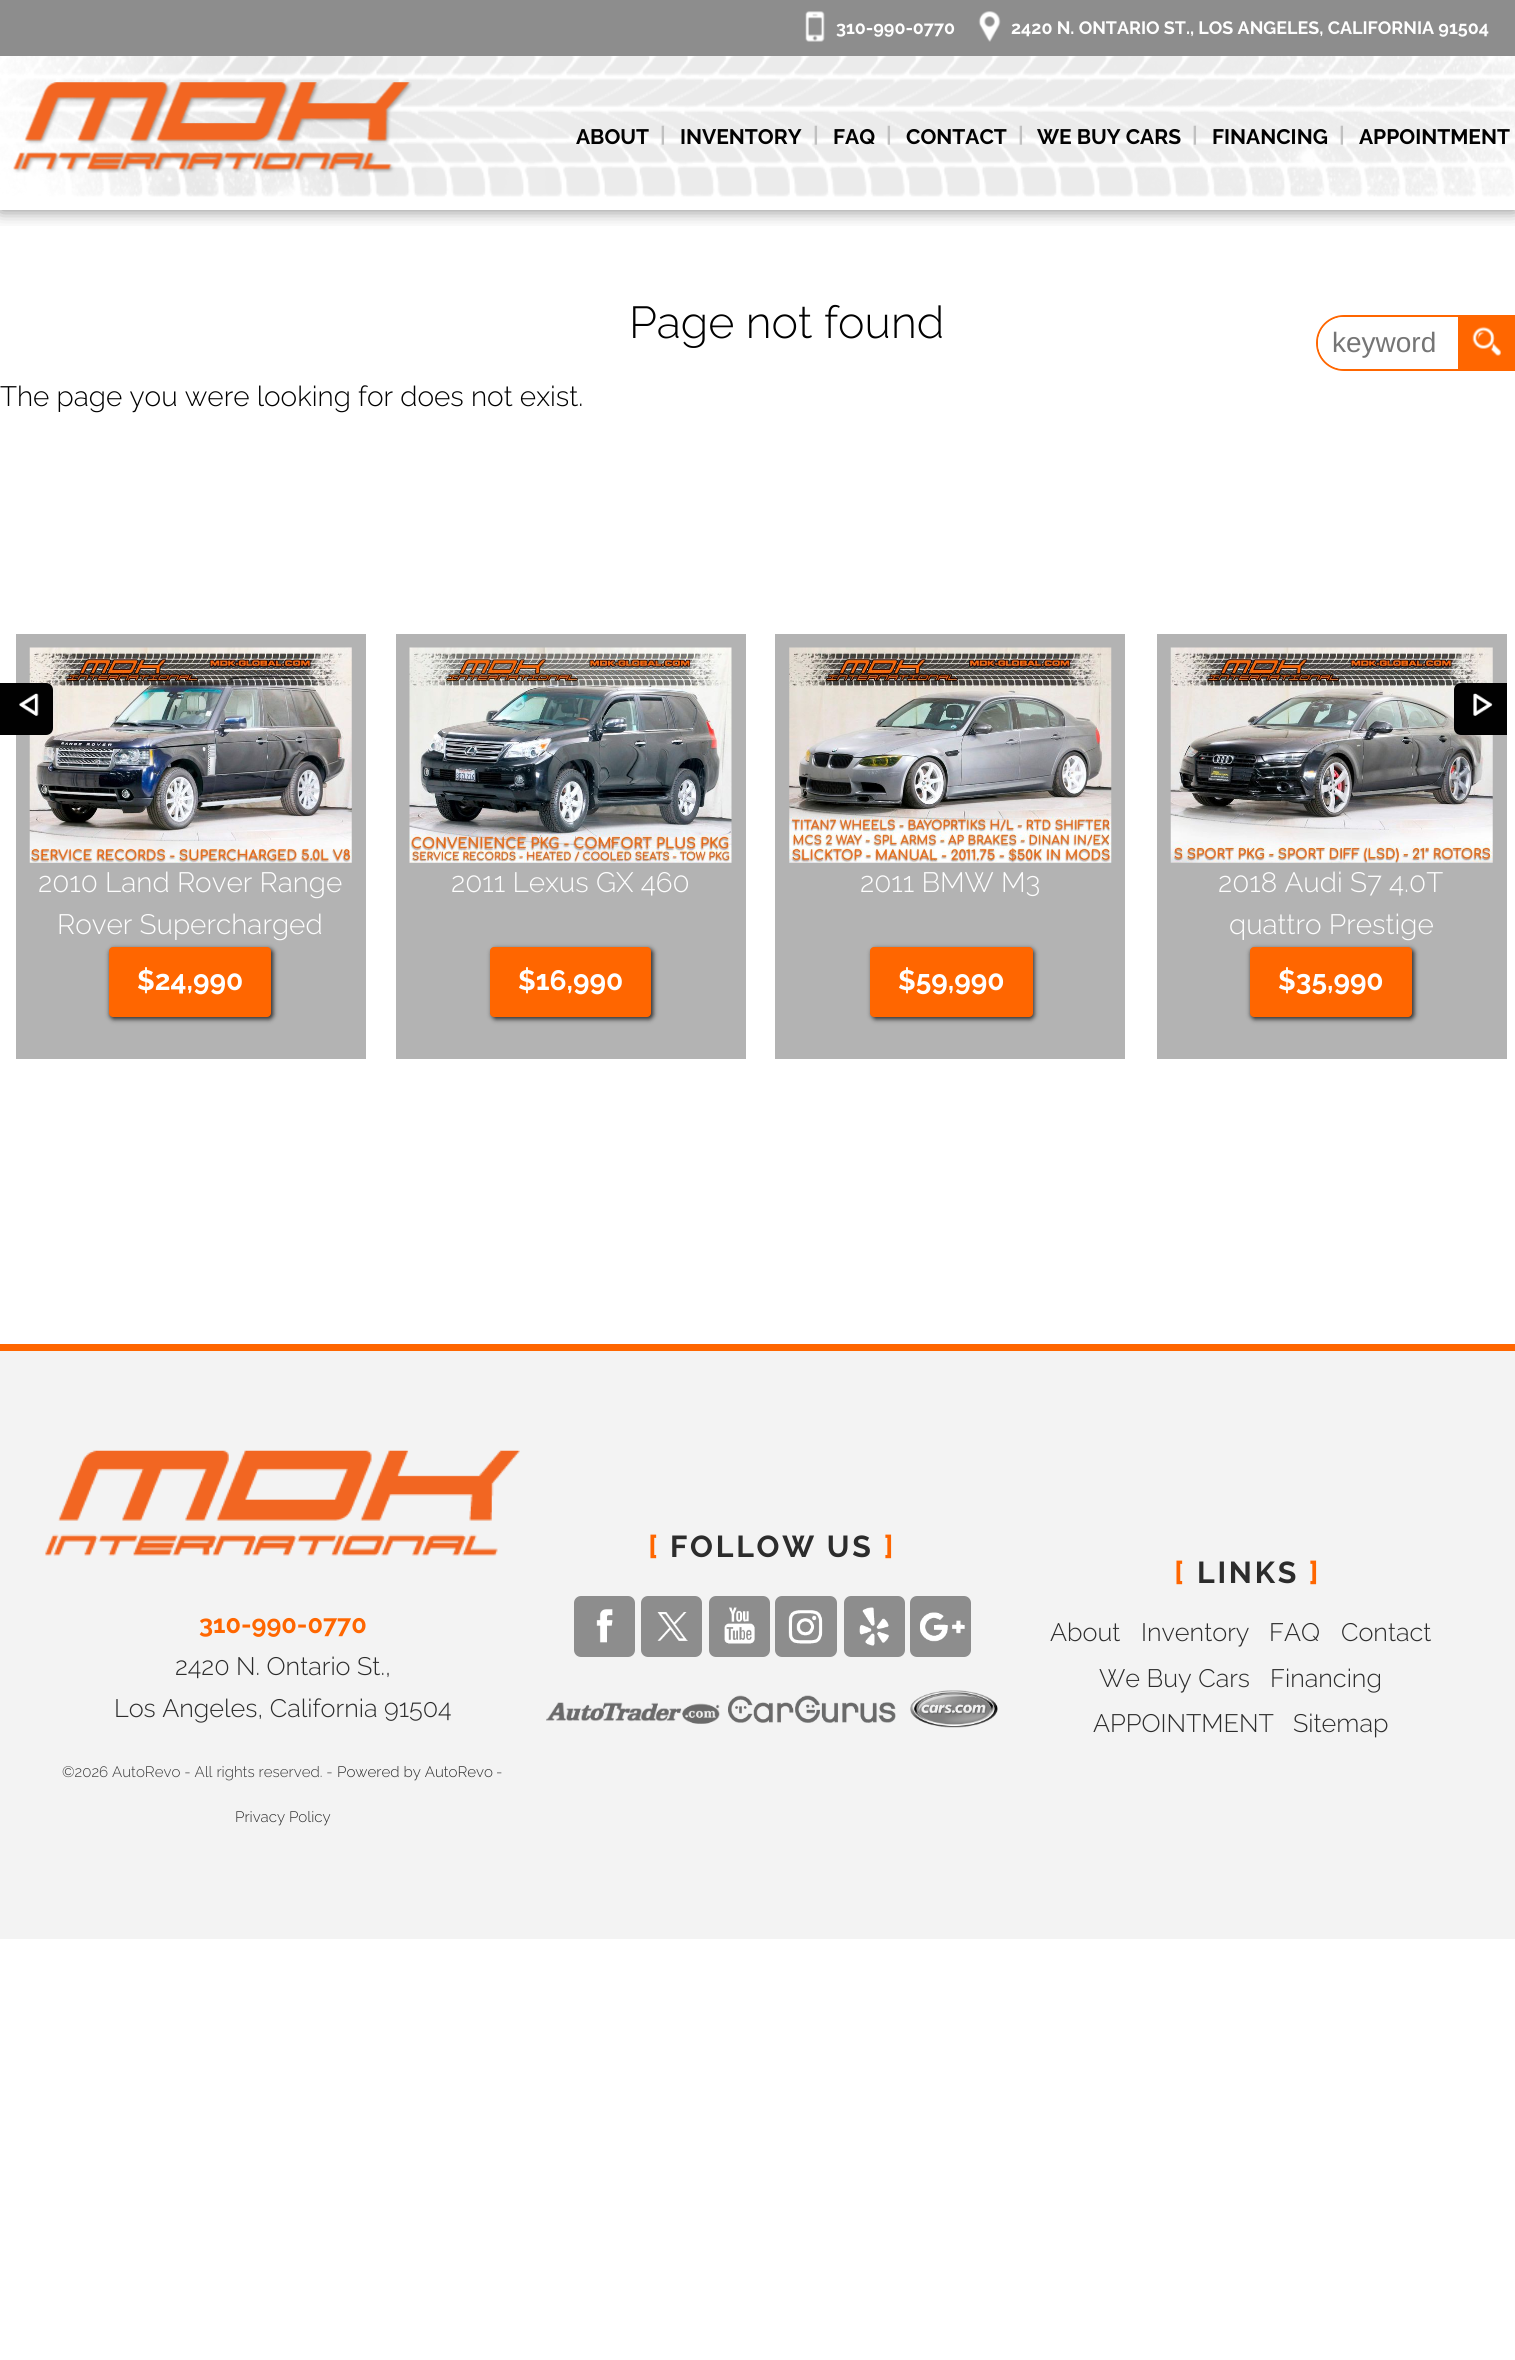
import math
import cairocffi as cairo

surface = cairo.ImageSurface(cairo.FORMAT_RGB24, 1515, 2360)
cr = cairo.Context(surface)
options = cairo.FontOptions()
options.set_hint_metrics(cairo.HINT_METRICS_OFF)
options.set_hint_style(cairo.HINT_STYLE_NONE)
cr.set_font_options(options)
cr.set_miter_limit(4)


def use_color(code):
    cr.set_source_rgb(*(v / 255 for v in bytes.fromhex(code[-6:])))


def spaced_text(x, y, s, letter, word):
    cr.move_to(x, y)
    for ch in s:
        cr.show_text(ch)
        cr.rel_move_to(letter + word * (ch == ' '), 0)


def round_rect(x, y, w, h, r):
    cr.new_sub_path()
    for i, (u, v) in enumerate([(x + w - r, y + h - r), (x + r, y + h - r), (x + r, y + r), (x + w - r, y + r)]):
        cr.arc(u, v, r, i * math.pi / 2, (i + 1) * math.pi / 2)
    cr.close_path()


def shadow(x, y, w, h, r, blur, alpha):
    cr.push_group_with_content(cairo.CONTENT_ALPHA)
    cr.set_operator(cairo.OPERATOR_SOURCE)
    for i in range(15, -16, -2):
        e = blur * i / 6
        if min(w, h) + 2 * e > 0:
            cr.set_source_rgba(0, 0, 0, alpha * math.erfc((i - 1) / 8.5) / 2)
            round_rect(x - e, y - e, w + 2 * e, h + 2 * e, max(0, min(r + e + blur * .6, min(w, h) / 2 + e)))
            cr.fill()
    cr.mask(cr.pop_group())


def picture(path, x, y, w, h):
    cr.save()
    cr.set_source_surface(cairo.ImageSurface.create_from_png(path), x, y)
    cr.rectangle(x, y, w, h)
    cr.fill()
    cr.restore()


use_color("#ffffff")
cr.paint()
cr.save()
cr.rectangle(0, 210, 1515, 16)
cr.clip()
use_color("#000000")
shadow(0, 0, 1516, 210, 0, 9, 0.5)
cr.restore()
picture("img1.png", 0, 56, 1515, 141)
use_color("#8d8d8d")
cr.rectangle(0, 0, 1515, 56)
cr.fill()
picture("img2.png", 805, 11, 20, 31)
cr.select_font_face("Raleway", cairo.FONT_SLANT_NORMAL, cairo.FONT_WEIGHT_BOLD)
cr.set_font_size(17.9)
use_color("#fefefe")
cr.move_to(836, 34)
cr.show_text("310-990-0770")
picture("img3.png", 978, 11, 23, 31)
cr.move_to(1011, 34)
cr.show_text("2420 N. ONTARIO ST., LOS ANGELES, CALIFORNIA 91504")
picture("img4.png", 13, 82, 399, 91)
cr.new_path()
cr.move_to(1344, 316)
cr.line_to(1515, 316)
cr.line_to(1515, 370)
cr.line_to(1344, 370)
cr.curve_to(1329, 370, 1317, 358, 1317, 343)
cr.curve_to(1317, 328, 1329, 316, 1344, 316)
cr.close_path()
use_color("#ff6600")
cr.stroke()
use_color("#ffffff")
cr.new_path()
cr.move_to(1344, 317)
cr.line_to(1458, 317)
cr.line_to(1458, 369)
cr.line_to(1344, 369)
cr.curve_to(1329.5, 369, 1318, 357.5, 1318, 343)
cr.curve_to(1318, 328.5, 1329.5, 317, 1344, 317)
cr.close_path()
cr.fill()
cr.select_font_face("Liberation Sans")
cr.set_font_size(28)
use_color("#757575")
cr.move_to(1332, 352)
cr.show_text("keyword")
use_color("#ff6600")
cr.rectangle(1458, 317, 56, 52)
cr.fill()
picture("img5.png", 1472, 326, 29, 30)
cr.select_font_face("Raleway", cairo.FONT_SLANT_NORMAL, cairo.FONT_WEIGHT_BOLD)
cr.set_font_size(21)
use_color("#010101")
cr.move_to(576, 144)
cr.show_text("ABOUT")
use_color("#c0c0c0")
cr.move_to(660, 142)
cr.show_text("|")
use_color("#010101")
cr.move_to(680, 144)
cr.show_text("INVENTORY")
use_color("#c0c0c0")
cr.move_to(813, 142)
cr.show_text("|")
use_color("#010101")
cr.move_to(833, 144)
cr.show_text("FAQ")
use_color("#c0c0c0")
cr.move_to(886, 142)
cr.show_text("|")
use_color("#010101")
cr.move_to(906, 144)
cr.show_text("CONTACT")
use_color("#c0c0c0")
cr.move_to(1018, 142)
cr.show_text("|")
use_color("#010101")
cr.move_to(1037, 144)
cr.show_text("WE BUY CARS")
use_color("#c0c0c0")
cr.move_to(1192, 142)
cr.show_text("|")
use_color("#010101")
cr.move_to(1212, 144)
cr.show_text("FINANCING")
use_color("#c0c0c0")
cr.move_to(1339, 142)
cr.show_text("|")
use_color("#010101")
cr.move_to(1359, 144)
cr.show_text("APPOINTMENT")
cr.select_font_face("Raleway Light")
cr.set_font_size(44.75)
cr.move_to(629, 338)
cr.show_text("Page not found")
cr.set_font_size(28)
cr.move_to(0, 406)
cr.show_text("The page you were looking for does not exist.")
use_color("#b3b3b3")
cr.rectangle(16, 634, 350, 425)
cr.fill()
picture("img8.png", 29, 647, 323, 216)
use_color("#010101")
cr.new_path()
cr.move_to(0, 683)
cr.line_to(46, 683)
cr.curve_to(50, 683, 53, 686, 53, 690)
cr.line_to(53, 728)
cr.curve_to(53, 732, 50, 735, 46, 735)
cr.line_to(0, 735)
cr.close_path()
cr.fill()
picture("img6.png", 19, 693, 20, 23)
use_color("#b3b3b3")
cr.rectangle(1157, 634, 350, 425)
cr.fill()
picture("img11.png", 1170, 647, 323, 216)
use_color("#010101")
cr.new_path()
cr.move_to(1461, 683)
cr.line_to(1507, 683)
cr.line_to(1507, 735)
cr.line_to(1461, 735)
cr.curve_to(1457, 735, 1454, 732, 1454, 728)
cr.line_to(1454, 690)
cr.curve_to(1454, 686, 1457, 683, 1461, 683)
cr.close_path()
cr.fill()
picture("img7.png", 1473, 693, 20, 23)
use_color("#fefefe")
cr.move_to(38, 892)
cr.show_text("2010 Land Rover Range")
cr.move_to(57, 934)
cr.show_text("Rover Supercharged")
use_color("#010101")
shadow(110, 949, 163, 70, 4, 2.5, 0.8)
use_color("#ff6600")
round_rect(109, 947, 162, 70, 4)
cr.fill()
cr.select_font_face("Raleway", cairo.FONT_SLANT_NORMAL, cairo.FONT_WEIGHT_BOLD)
use_color("#fefefe")
cr.move_to(137, 990)
cr.show_text("$24,990")
use_color("#b3b3b3")
cr.rectangle(396, 634, 350, 425)
cr.fill()
picture("img9.png", 409, 647, 323, 216)
cr.select_font_face("Raleway Light")
use_color("#fefefe")
cr.move_to(451, 892)
cr.show_text("2011 Lexus GX 460")
use_color("#010101")
shadow(492, 949, 161, 70, 4, 2.5, 0.8)
use_color("#ff6600")
round_rect(490, 947, 161, 70, 4)
cr.fill()
cr.select_font_face("Raleway", cairo.FONT_SLANT_NORMAL, cairo.FONT_WEIGHT_BOLD)
use_color("#fefefe")
cr.move_to(518, 990)
cr.show_text("$16,990")
use_color("#b3b3b3")
cr.rectangle(775, 634, 350, 425)
cr.fill()
picture("img10.png", 789, 647, 323, 216)
cr.select_font_face("Raleway Light")
use_color("#fefefe")
cr.move_to(860, 892)
cr.show_text("2011 BMW M3")
use_color("#010101")
shadow(872, 949, 162, 70, 4, 2.5, 0.8)
use_color("#ff6600")
round_rect(870, 947, 163, 70, 4)
cr.fill()
cr.select_font_face("Raleway", cairo.FONT_SLANT_NORMAL, cairo.FONT_WEIGHT_BOLD)
use_color("#fefefe")
cr.move_to(898, 990)
cr.show_text("$59,990")
cr.select_font_face("Raleway Light")
cr.move_to(1218, 892)
cr.show_text("2018 Audi S7 4.0T")
cr.move_to(1229, 934)
cr.show_text("quattro Prestige")
use_color("#010101")
shadow(1251, 949, 163, 70, 4, 2.5, 0.8)
use_color("#ff6600")
round_rect(1250, 947, 162, 70, 4)
cr.fill()
cr.select_font_face("Raleway", cairo.FONT_SLANT_NORMAL, cairo.FONT_WEIGHT_BOLD)
use_color("#fefefe")
cr.move_to(1278, 990)
cr.show_text("$35,990")
use_color("#f3f3f3")
cr.rectangle(0, 1351, 1515, 588)
cr.fill()
use_color("#ff6600")
cr.rectangle(0, 1344, 1515, 7)
cr.fill()
cr.set_font_size(30.25)
spaced_text(648, 1557, "[", 2.75, 0)
use_color("#2c2c2c")
spaced_text(670, 1557, "FOLLOW US", 2.75, 0)
use_color("#ff6600")
spaced_text(884, 1557, "]", 2.75, 0)
use_color("#8d8d8d")
round_rect(574, 1596, 61, 61, 7)
cr.fill()
picture("img12.png", 596, 1609, 17, 34)
round_rect(641, 1596, 61, 61, 7)
cr.fill()
picture("img13.png", 657, 1612, 31, 29)
round_rect(709, 1596, 61, 61, 7)
cr.fill()
picture("img14.png", 724, 1607, 31, 37)
round_rect(775, 1596, 62, 61, 7)
cr.fill()
picture("img15.png", 788, 1610, 35, 34)
round_rect(844, 1596, 61, 61, 7)
cr.fill()
picture("img16.png", 859, 1607, 30, 39)
round_rect(910, 1596, 61, 61, 7)
cr.fill()
picture("img17.png", 920, 1612, 45, 30)
picture("img18.png", 546, 1702, 174, 22)
picture("img19.png", 728, 1695, 168, 28)
picture("img20.png", 910, 1690, 88, 38)
picture("img21.png", 45, 1450, 475, 106)
cr.set_font_size(25.25)
use_color("#ff6600")
cr.move_to(199, 1633)
cr.show_text("310-990-0770")
cr.select_font_face("Raleway Light")
use_color("#2c2c2c")
cr.move_to(175, 1675)
cr.show_text("2420 N. Ontario St.,")
cr.move_to(114, 1717)
cr.show_text("Los Angeles, California 91504")
cr.set_font_size(15.1)
use_color("#393939")
cr.move_to(62, 1777)
cr.show_text("©2026 AutoRevo - All rights reserved. -")
use_color("#2c2c2c")
cr.move_to(337, 1777)
cr.show_text("Powered by AutoRevo")
use_color("#393939")
cr.move_to(496, 1777)
cr.show_text("-")
use_color("#2c2c2c")
cr.move_to(235, 1822)
cr.show_text("Privacy Policy")
cr.select_font_face("Raleway", cairo.FONT_SLANT_NORMAL, cairo.FONT_WEIGHT_BOLD)
cr.set_font_size(30.25)
use_color("#ff6600")
spaced_text(1174, 1583, "[", 2.75, 0)
use_color("#2c2c2c")
spaced_text(1197, 1583, "LINKS", 2.75, 0)
use_color("#ff6600")
spaced_text(1309, 1583, "]", 2.75, 0)
cr.select_font_face("Raleway Light")
cr.set_font_size(25.25)
use_color("#2c2c2c")
cr.move_to(1050, 1641)
cr.show_text("About")
cr.move_to(1141, 1641)
cr.show_text("Inventory")
cr.move_to(1269, 1641)
cr.show_text("FAQ")
cr.move_to(1341, 1641)
cr.show_text("Contact")
cr.move_to(1099, 1687)
cr.show_text("We Buy Cars")
cr.move_to(1270, 1687)
cr.show_text("Financing")
cr.move_to(1093, 1732)
cr.show_text("APPOINTMENT")
cr.move_to(1293, 1732)
cr.show_text("Sitemap")
surface.write_to_png("result.png")
